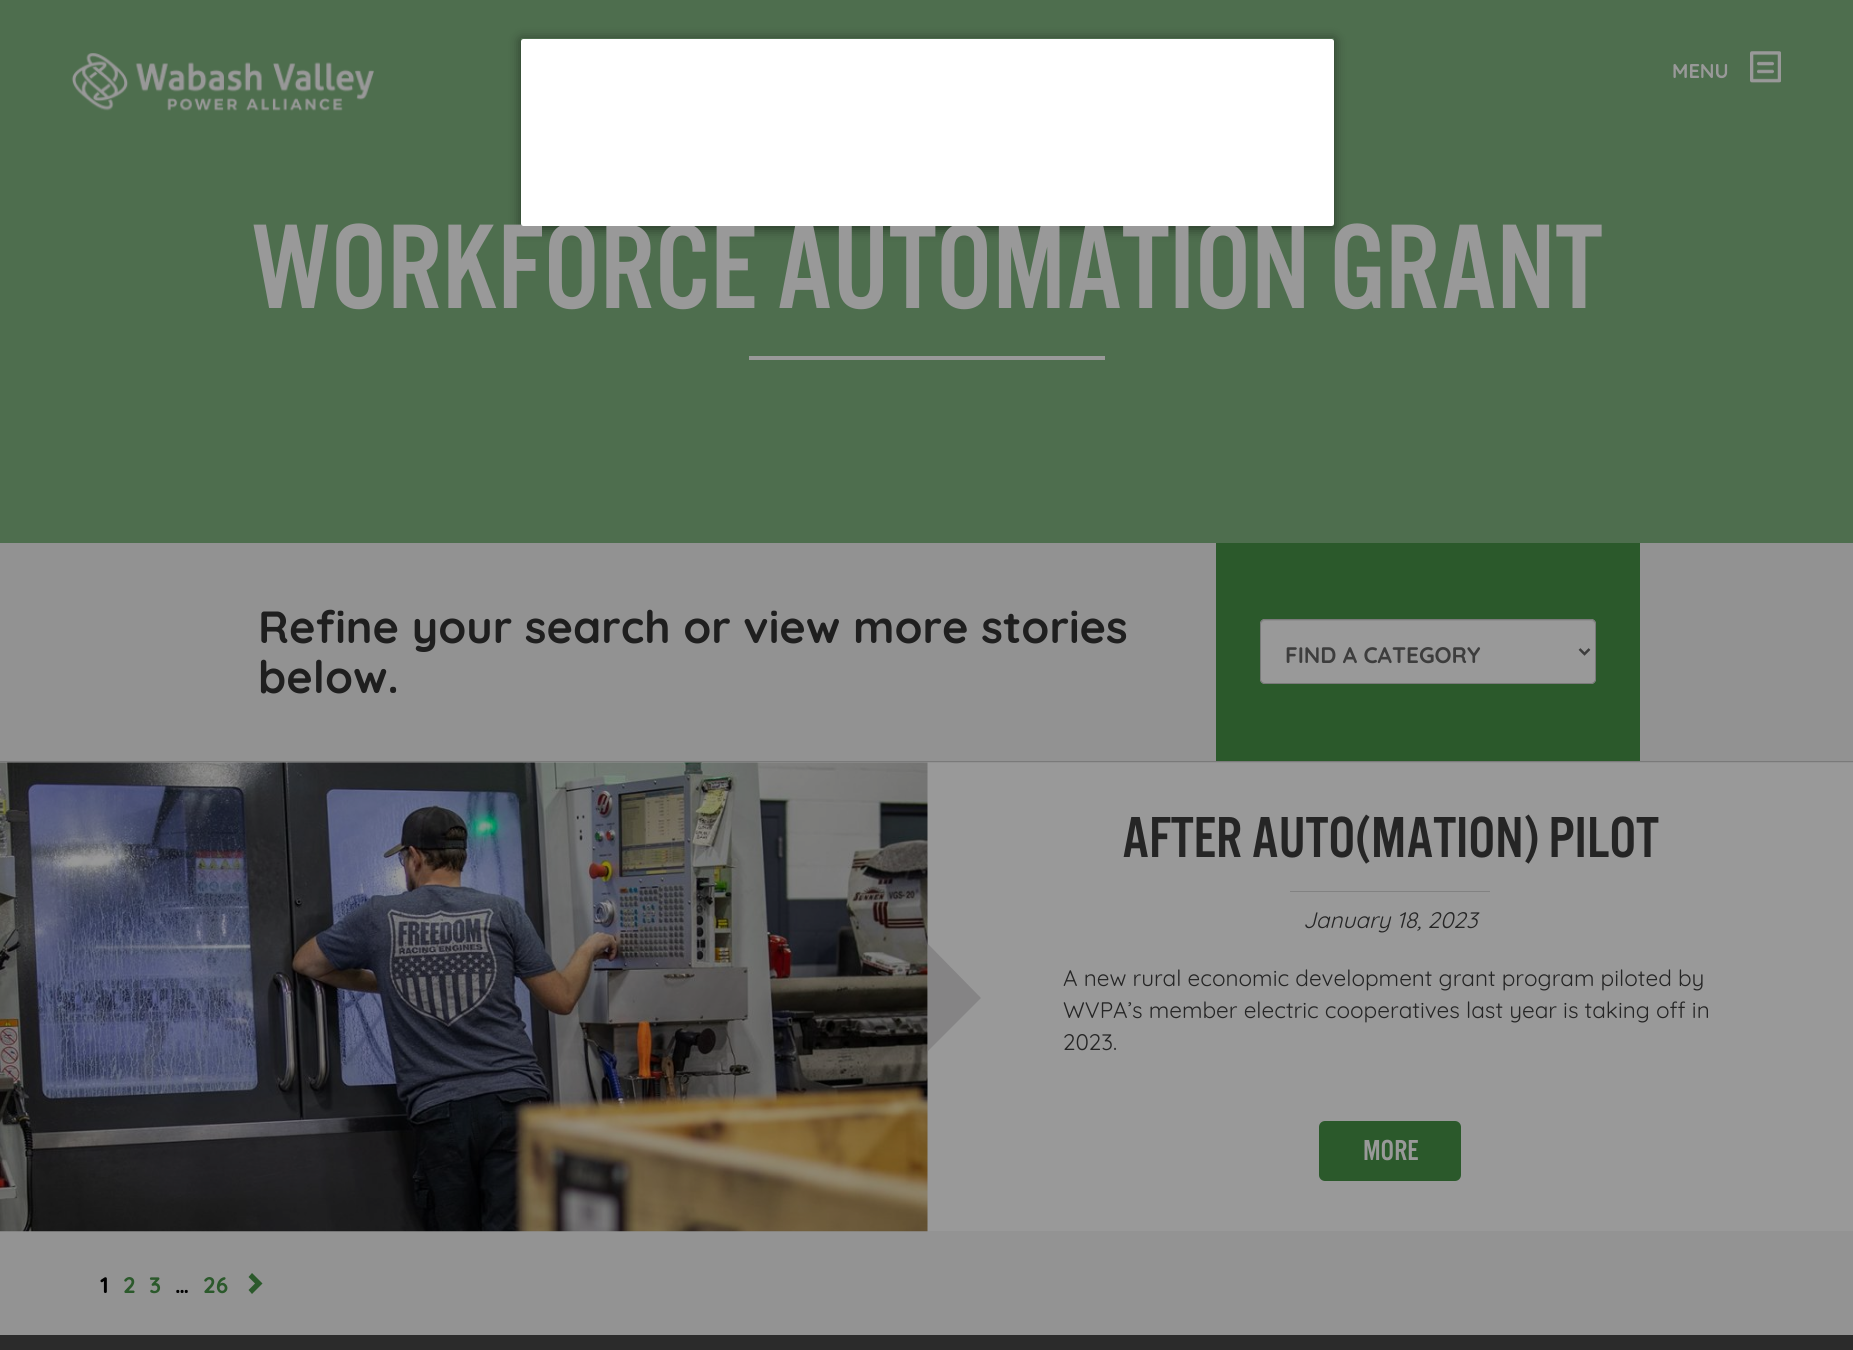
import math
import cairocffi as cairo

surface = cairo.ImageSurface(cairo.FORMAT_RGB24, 1853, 1350)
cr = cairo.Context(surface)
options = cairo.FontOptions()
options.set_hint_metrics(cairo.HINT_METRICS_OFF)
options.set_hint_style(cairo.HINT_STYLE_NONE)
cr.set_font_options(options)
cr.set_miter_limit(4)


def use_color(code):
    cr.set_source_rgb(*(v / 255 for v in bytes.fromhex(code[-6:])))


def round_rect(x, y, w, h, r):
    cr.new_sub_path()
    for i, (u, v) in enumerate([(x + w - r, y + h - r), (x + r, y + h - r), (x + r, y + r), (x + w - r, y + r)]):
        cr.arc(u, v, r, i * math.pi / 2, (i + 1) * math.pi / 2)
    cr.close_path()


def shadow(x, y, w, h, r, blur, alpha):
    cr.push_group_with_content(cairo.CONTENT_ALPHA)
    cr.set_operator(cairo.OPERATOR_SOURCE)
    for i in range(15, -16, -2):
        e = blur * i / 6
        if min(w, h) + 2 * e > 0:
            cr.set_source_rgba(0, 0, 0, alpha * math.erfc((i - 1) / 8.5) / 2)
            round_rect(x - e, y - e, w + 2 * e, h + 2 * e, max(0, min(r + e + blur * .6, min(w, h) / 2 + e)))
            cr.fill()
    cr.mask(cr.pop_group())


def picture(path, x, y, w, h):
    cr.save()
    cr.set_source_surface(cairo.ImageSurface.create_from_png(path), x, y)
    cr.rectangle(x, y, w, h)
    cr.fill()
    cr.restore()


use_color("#999999")
cr.paint()
use_color("#4e6e4e")
cr.rectangle(0, 0, 1853, 543)
cr.fill()
cr.save()
cr.set_fill_rule(cairo.FILL_RULE_EVEN_ODD)
cr.new_path()
cr.move_to(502, 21)
cr.line_to(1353, 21)
cr.line_to(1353, 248)
cr.line_to(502, 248)
cr.close_path()
cr.move_to(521, 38)
cr.line_to(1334, 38)
cr.line_to(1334, 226)
cr.line_to(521, 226)
cr.close_path()
cr.clip()
use_color("#000000")
shadow(521, 40, 813, 189, 0, 6, 0.5)
cr.restore()
cr.select_font_face("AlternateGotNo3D")
cr.set_font_size(125)
use_color("#999999")
cr.move_to(251, 308)
cr.show_text("WORKFORCE AUTOMATION GRANT")
use_color("#ffffff")
round_rect(521, 39, 813, 187, 2.5)
cr.fill()
picture("img1.png", 71, 53, 303, 58)
cr.select_font_face("Quicksand", cairo.FONT_SLANT_NORMAL, cairo.FONT_WEIGHT_BOLD)
cr.set_font_size(20)
use_color("#999999")
cr.move_to(1672, 78)
cr.show_text("MENU")
picture("img2.png", 1750, 51, 31, 32)
cr.rectangle(749, 356, 356, 4)
cr.fill()
use_color("#929292")
cr.rectangle(0, 543, 1853, 220)
cr.fill()
use_color("#7a7a7a")
cr.rectangle(0, 761, 1853, 1)
cr.fill()
cr.set_font_size(45)
use_color("#1f1f1f")
cr.move_to(258, 643)
cr.show_text("Refine your search or view more stories")
cr.move_to(258, 693)
cr.show_text("below.")
use_color("#2b592b")
cr.rectangle(1216, 543, 424, 218)
cr.fill()
use_color("#999999")
round_rect(1260, 619, 336, 65, 5)
cr.fill()
use_color("#8e8e8e")
cr.new_path()
cr.move_to(1265, 621)
cr.line_to(1591, 621)
cr.curve_to(1593, 621, 1595, 623, 1595, 625)
cr.curve_to(1595, 622, 1594, 620, 1591, 620)
cr.line_to(1265, 620)
cr.curve_to(1262, 620, 1261, 622, 1261, 625)
cr.curve_to(1261, 623, 1263, 621, 1265, 621)
cr.close_path()
cr.fill()
round_rect(1260.5, 619.5, 335, 64, 4.5)
use_color("#7a7a7a")
cr.set_line_width(1)
cr.stroke()
cr.new_path()
cr.move_to(1579.5, 649)
cr.line_to(1584.5, 654)
cr.line_to(1589.5, 649)
use_color("#3d3d3d")
cr.set_line_width(2.5)
cr.stroke()
cr.set_font_size(22.5)
cr.move_to(1285, 663)
cr.show_text("FIND A CATEGORY")
use_color("#939393")
cr.rectangle(0, 1231, 1853, 104)
cr.fill()
picture("img3.png", 0, 762, 928, 470)
cr.select_font_face("AlternateGotNo3D")
cr.set_font_size(60)
use_color("#252525")
cr.move_to(1122, 857)
cr.show_text("AFTER AUTO(MATION) PILOT")
use_color("#828282")
cr.rectangle(1290, 891, 200, 1)
cr.fill()
cr.select_font_face("Quicksand", cairo.FONT_SLANT_ITALIC)
cr.set_font_size(22.5)
use_color("#252525")
cr.move_to(1303, 928)
cr.show_text("January 18, 2023")
use_color("#858485")
cr.new_path()
cr.move_to(928, 1051)
cr.line_to(928, 944)
cr.line_to(981, 998)
cr.close_path()
cr.fill()
cr.select_font_face("Quicksand")
use_color("#252525")
cr.move_to(1063, 986)
cr.show_text("A new rural economic development grant program piloted by")
cr.move_to(1063, 1018)
cr.show_text("WVPA’s member electric cooperatives last year is taking off in")
cr.move_to(1063, 1050)
cr.show_text("2023.")
use_color("#2b592b")
round_rect(1319, 1121, 142, 60, 6)
cr.fill()
cr.select_font_face("AlternateGotNo3D")
cr.set_font_size(30)
use_color("#999999")
cr.move_to(1363, 1160)
cr.show_text("MORE")
cr.select_font_face("Quicksand", cairo.FONT_SLANT_NORMAL, cairo.FONT_WEIGHT_BOLD)
cr.set_font_size(22.5)
use_color("#000000")
cr.move_to(100, 1293)
cr.show_text("1")
use_color("#2b592b")
cr.move_to(123, 1293)
cr.show_text("2")
cr.move_to(149, 1293)
cr.show_text("3")
use_color("#000000")
cr.move_to(175, 1293)
cr.show_text("…")
use_color("#2b592b")
cr.move_to(203, 1293)
cr.show_text("26")
cr.new_path()
cr.move_to(262.5, 1283.5)
cr.line_to(252, 1294)
cr.line_to(248.5, 1290)
cr.line_to(255, 1283.5)
cr.line_to(248.5, 1277)
cr.line_to(252, 1273)
cr.close_path()
cr.fill()
use_color("#2b2b2b")
cr.rectangle(0, 1335, 1853, 15)
cr.fill()
surface.write_to_png("result.png")
